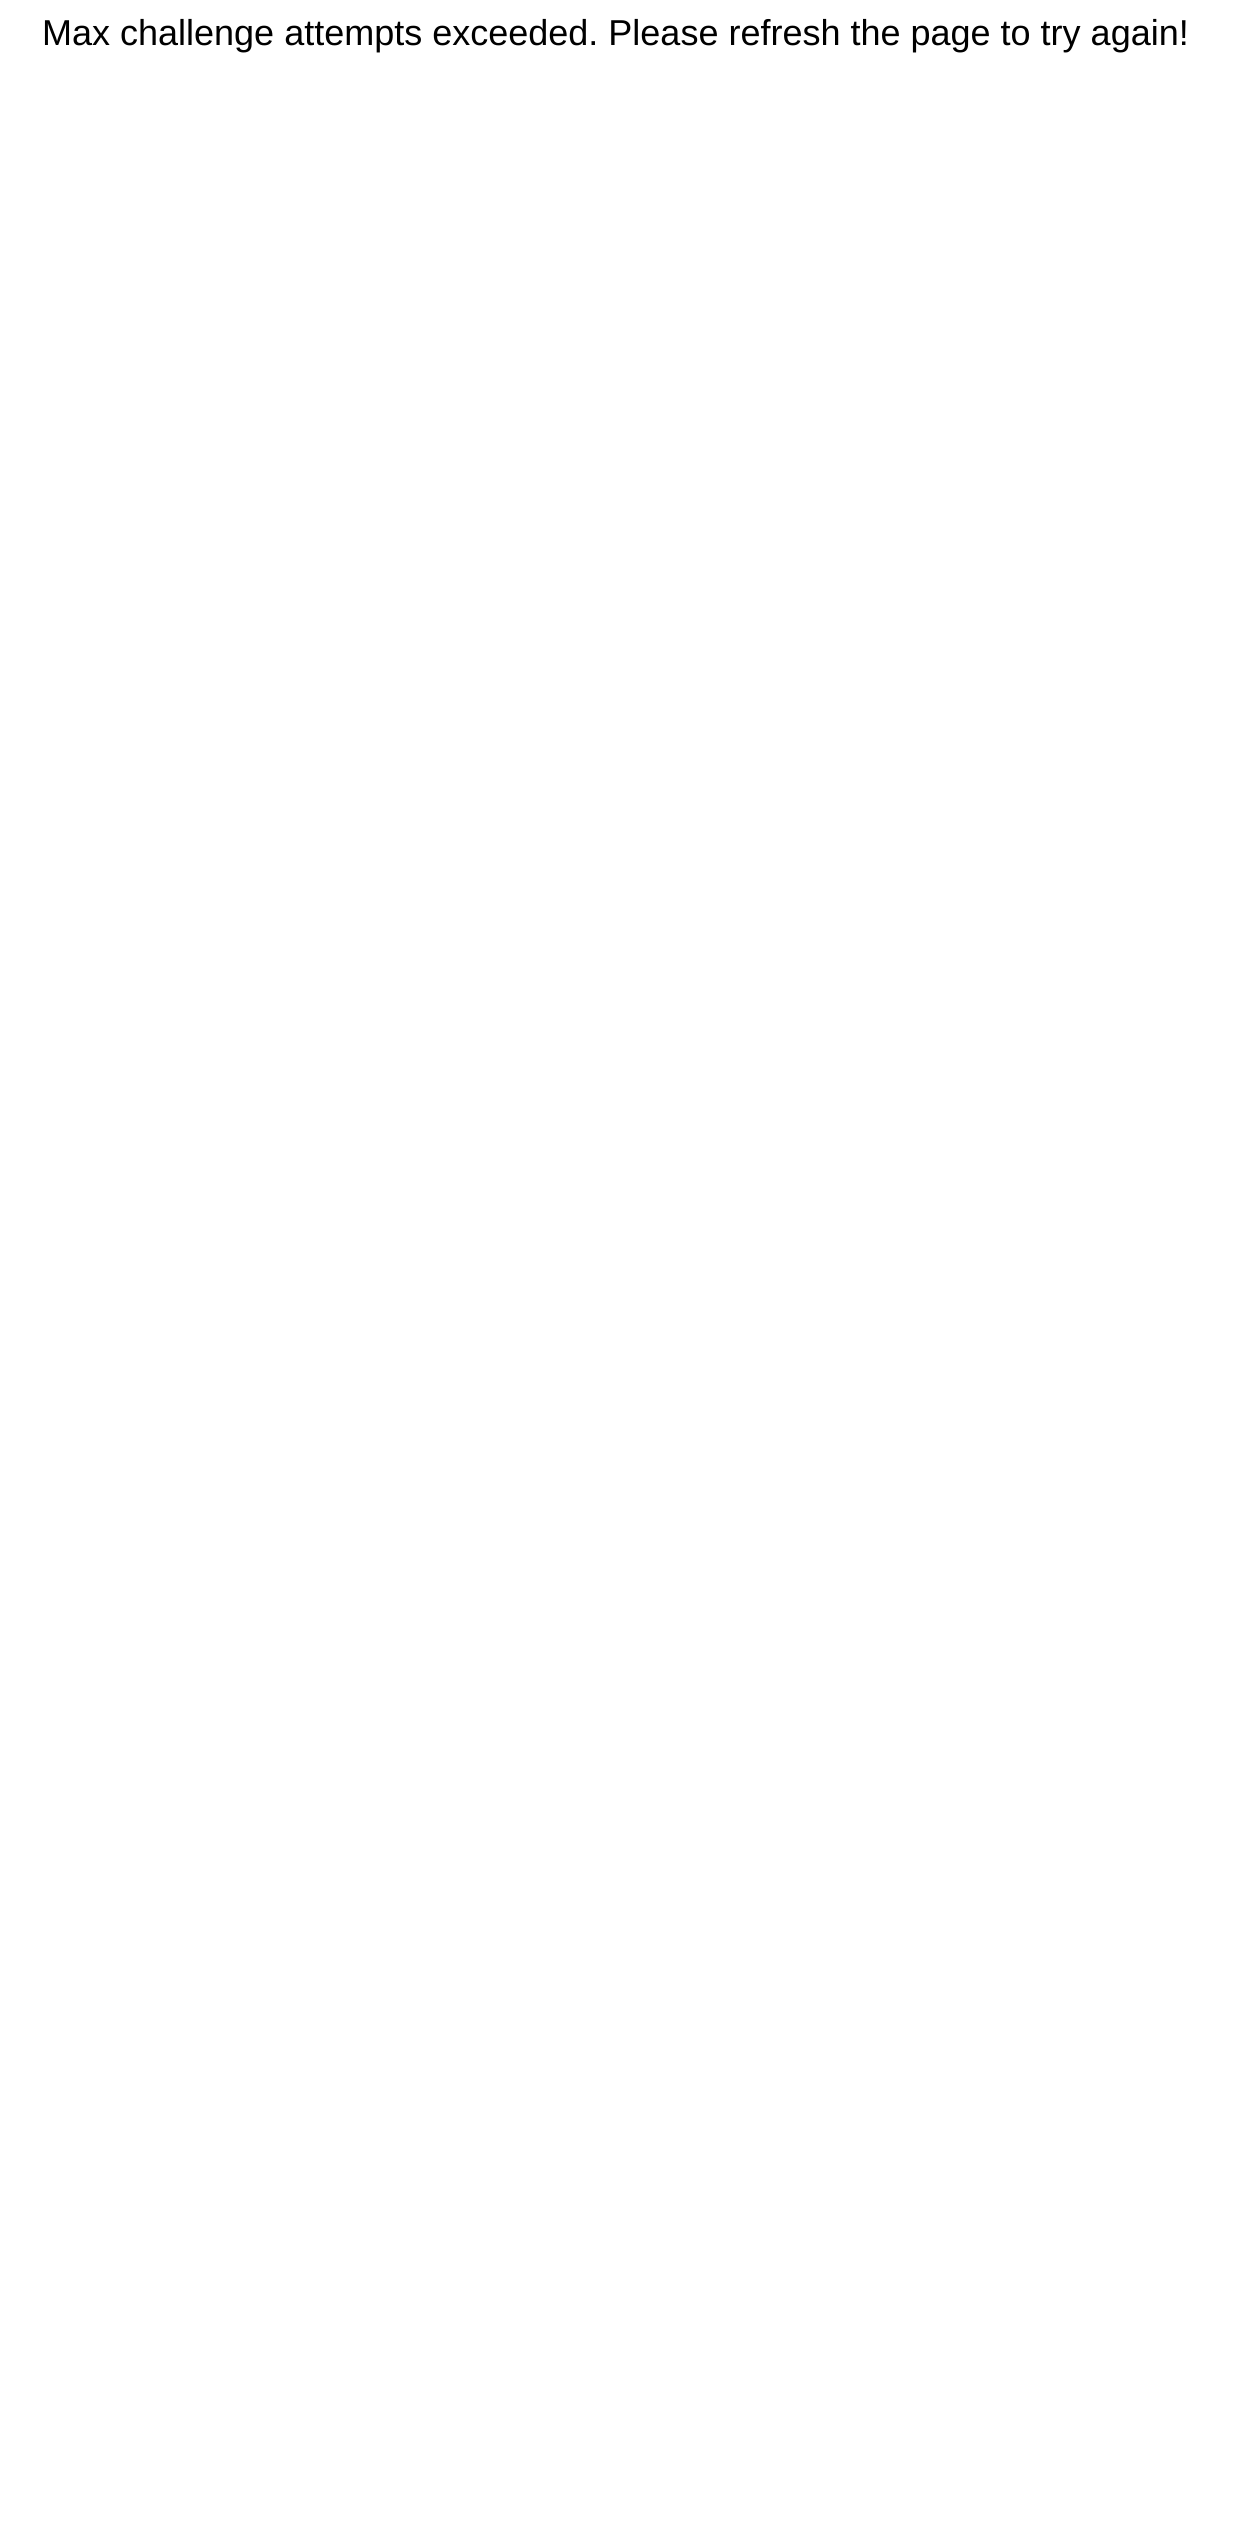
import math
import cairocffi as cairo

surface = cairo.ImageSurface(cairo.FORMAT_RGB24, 1250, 2546)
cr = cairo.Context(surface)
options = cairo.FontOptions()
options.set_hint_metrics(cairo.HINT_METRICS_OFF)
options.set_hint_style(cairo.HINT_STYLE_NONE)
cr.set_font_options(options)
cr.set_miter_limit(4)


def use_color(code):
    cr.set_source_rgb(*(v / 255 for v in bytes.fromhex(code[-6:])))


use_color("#ffffff")
cr.paint()
cr.select_font_face("Liberation Sans")
cr.set_font_size(36)
use_color("#000000")
cr.move_to(42, 45)
cr.show_text("Max challenge attempts exceeded. Please refresh the page to try again!")
surface.write_to_png("result.png")
